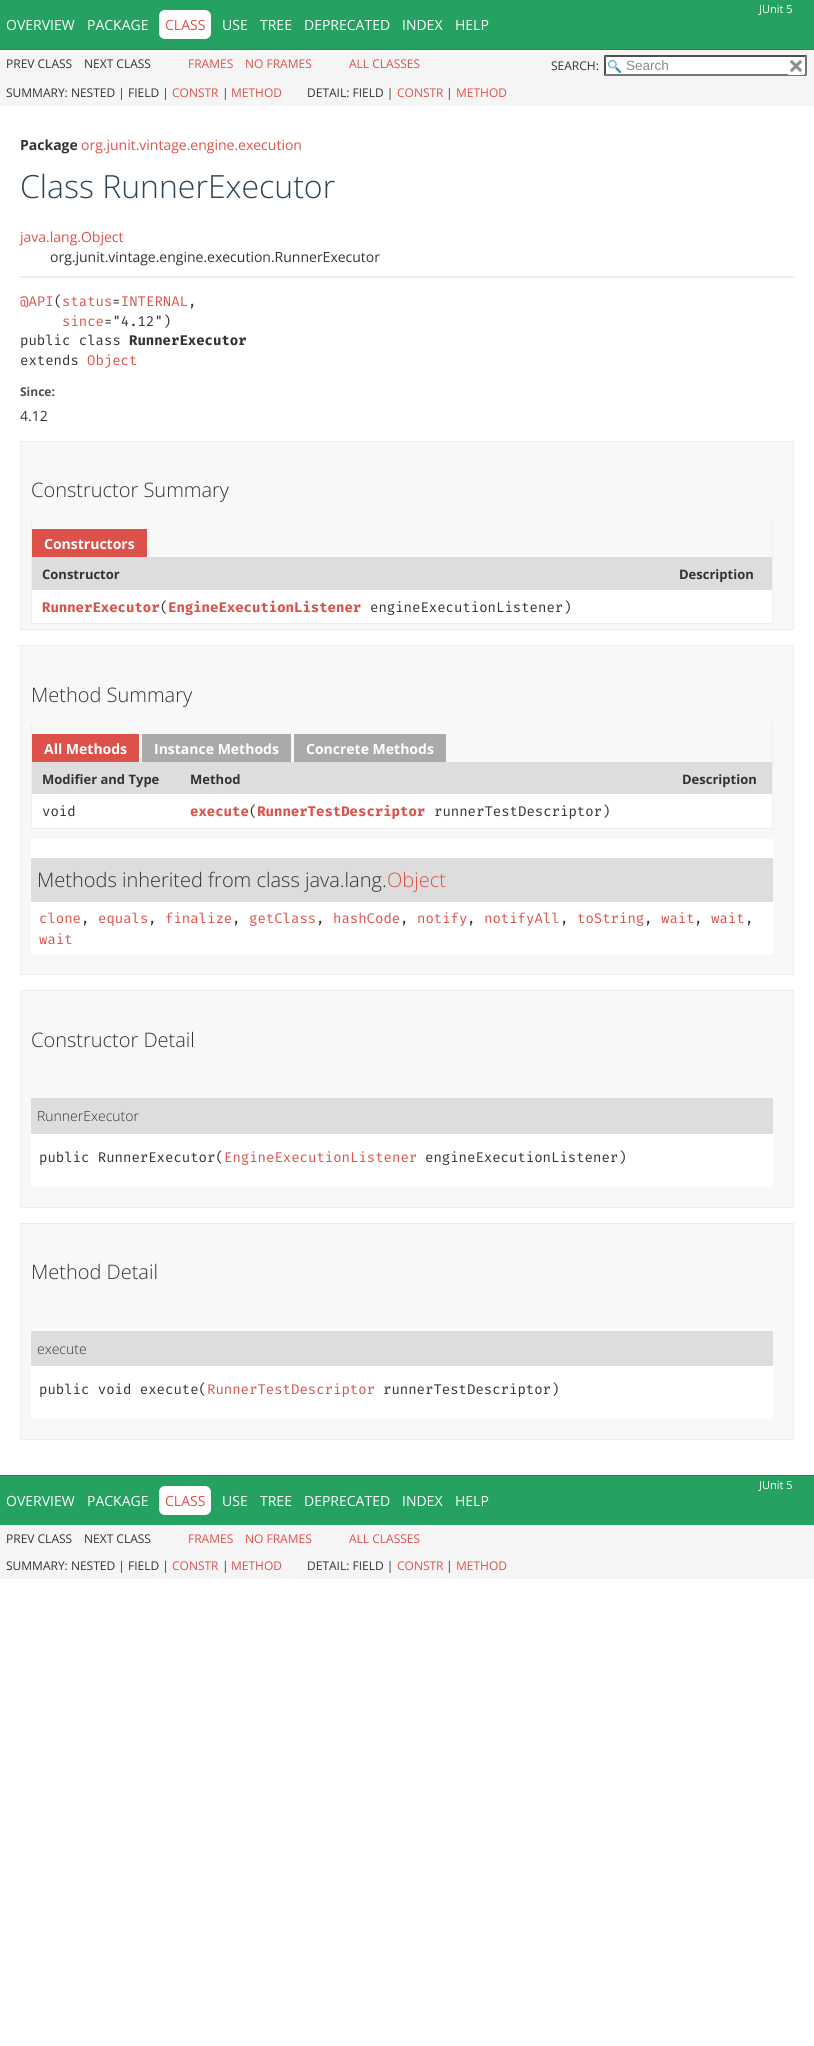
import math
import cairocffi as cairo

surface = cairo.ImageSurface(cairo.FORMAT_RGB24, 814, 2046)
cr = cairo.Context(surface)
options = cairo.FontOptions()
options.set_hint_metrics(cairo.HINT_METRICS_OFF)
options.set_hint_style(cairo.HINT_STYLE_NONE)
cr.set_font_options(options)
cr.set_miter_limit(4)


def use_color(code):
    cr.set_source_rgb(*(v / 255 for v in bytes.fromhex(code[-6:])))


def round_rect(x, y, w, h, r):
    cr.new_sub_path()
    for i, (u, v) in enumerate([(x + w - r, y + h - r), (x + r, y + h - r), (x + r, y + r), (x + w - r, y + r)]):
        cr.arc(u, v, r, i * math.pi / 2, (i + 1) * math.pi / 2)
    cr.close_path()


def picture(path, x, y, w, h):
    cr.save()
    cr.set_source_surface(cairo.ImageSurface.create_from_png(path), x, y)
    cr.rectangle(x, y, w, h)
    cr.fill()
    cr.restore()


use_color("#ffffff")
cr.paint()
use_color("#25a162")
cr.rectangle(0, 0, 814, 49)
cr.fill()
use_color("#208c55")
cr.rectangle(0, 49, 814, 1)
cr.fill()
cr.select_font_face("Open Sans")
cr.set_font_size(11)
use_color("#ffffff")
cr.move_to(759, 13)
cr.show_text("JUnit 5")
cr.set_font_size(14)
cr.move_to(6, 30)
cr.show_text("OVERVIEW")
cr.move_to(87, 30)
cr.show_text("PACKAGE")
round_rect(159, 10, 52, 29, 6)
cr.fill()
use_color("#dc524a")
cr.move_to(165, 30)
cr.show_text("CLASS")
use_color("#ffffff")
cr.move_to(222, 30)
cr.show_text("USE")
cr.move_to(260, 30)
cr.show_text("TREE")
cr.move_to(304, 30)
cr.show_text("DEPRECATED")
cr.move_to(402, 30)
cr.show_text("INDEX")
cr.move_to(455, 30)
cr.show_text("HELP")
use_color("#f5f5f5")
cr.rectangle(0, 50, 814, 56)
cr.fill()
cr.set_font_size(12)
use_color("#333333")
cr.move_to(6, 68)
cr.show_text("PREV CLASS")
cr.move_to(84, 68)
cr.show_text("NEXT CLASS")
use_color("#dc524a")
cr.move_to(188, 68)
cr.show_text("FRAMES")
cr.move_to(245, 68)
cr.show_text("NO FRAMES")
cr.move_to(349, 68)
cr.show_text("ALL CLASSES")
use_color("#333333")
cr.move_to(551, 70)
cr.show_text("SEARCH:")
use_color("#ffffff")
cr.rectangle(604, 55, 203, 21)
cr.fill()
picture("img1.png", 608, 60, 13, 13)
use_color("#4f4f4f")
cr.new_path()
cr.move_to(604, 55)
cr.line_to(807, 55)
cr.line_to(805, 57)
cr.line_to(606, 57)
cr.close_path()
cr.fill()
use_color("#767676")
cr.new_path()
cr.move_to(807, 55)
cr.line_to(807, 76)
cr.line_to(805, 74)
cr.line_to(805, 57)
cr.close_path()
cr.fill()
cr.new_path()
cr.move_to(807, 76)
cr.line_to(604, 76)
cr.line_to(606, 74)
cr.line_to(805, 74)
cr.close_path()
cr.fill()
use_color("#4f4f4f")
cr.new_path()
cr.move_to(604, 76)
cr.line_to(604, 55)
cr.line_to(606, 57)
cr.line_to(606, 74)
cr.close_path()
cr.fill()
cr.select_font_face("Liberation Sans")
cr.set_font_size(13.5)
use_color("#888888")
cr.move_to(626, 70)
cr.show_text("Search")
use_color("#ffffff")
cr.rectangle(788, 74, 16, 1)
cr.fill()
picture("img2.png", 789, 60, 14, 12)
cr.select_font_face("Open Sans")
cr.set_font_size(12)
use_color("#333333")
cr.move_to(6, 97)
cr.show_text("SUMMARY: NESTED | FIELD |")
use_color("#dc524a")
cr.move_to(172, 97)
cr.show_text("CONSTR")
use_color("#333333")
cr.move_to(222, 97)
cr.show_text("|")
use_color("#dc524a")
cr.move_to(231, 97)
cr.show_text("METHOD")
use_color("#333333")
cr.move_to(307, 97)
cr.show_text("DETAIL: FIELD |")
use_color("#dc524a")
cr.move_to(397, 97)
cr.show_text("CONSTR")
use_color("#333333")
cr.move_to(446, 97)
cr.show_text("|")
use_color("#dc524a")
cr.move_to(456, 97)
cr.show_text("METHOD")
cr.select_font_face("Open Sans", cairo.FONT_SLANT_NORMAL, cairo.FONT_WEIGHT_BOLD)
cr.set_font_size(14)
use_color("#333333")
cr.move_to(20, 150)
cr.show_text("Package")
cr.select_font_face("Open Sans")
use_color("#dc524a")
cr.move_to(81, 150)
cr.show_text("org.junit.vintage.engine.execution")
cr.select_font_face("Open Sans Light")
cr.set_font_size(32)
use_color("#2c4557")
cr.move_to(20, 198)
cr.show_text("Class RunnerExecutor")
cr.select_font_face("Open Sans")
cr.set_font_size(14)
use_color("#dc524a")
cr.move_to(20, 242)
cr.show_text("java.lang.Object")
use_color("#333333")
cr.move_to(50, 262)
cr.show_text("org.junit.vintage.engine.execution.RunnerExecutor")
use_color("#eeeeee")
cr.rectangle(20, 276, 774, 2)
cr.fill()
cr.select_font_face("Fira Mono")
use_color("#dc524a")
cr.move_to(20, 306)
cr.show_text("@API status INTERNAL")
use_color("#333333")
cr.move_to(54, 306)
cr.show_text("(")
cr.move_to(112, 306)
cr.show_text("=")
cr.move_to(188, 306)
cr.show_text(",")
use_color("#dc524a")
cr.move_to(62, 326)
cr.show_text("since")
use_color("#333333")
cr.move_to(104, 326)
cr.show_text("=\"4.12\")")
cr.move_to(20, 345)
cr.show_text("public class")
cr.select_font_face("Fira Mono", cairo.FONT_SLANT_NORMAL, cairo.FONT_WEIGHT_BOLD)
cr.move_to(129, 345)
cr.show_text("RunnerExecutor")
cr.select_font_face("Fira Mono")
cr.move_to(20, 365)
cr.show_text("extends")
use_color("#dc524a")
cr.move_to(87, 365)
cr.show_text("Object")
cr.select_font_face("Open Sans", cairo.FONT_SLANT_NORMAL, cairo.FONT_WEIGHT_BOLD)
cr.set_font_size(12)
use_color("#4e4e4e")
cr.move_to(20, 396)
cr.show_text("Since:")
cr.select_font_face("Open Sans")
cr.set_font_size(14)
use_color("#333333")
cr.move_to(20, 421)
cr.show_text("4.12")
use_color("#f8f8f8")
cr.rectangle(20.5, 441.5, 773, 188)
cr.fill_preserve()
use_color("#ededed")
cr.set_line_width(1)
cr.stroke()
cr.select_font_face("Open Sans Light")
cr.set_font_size(20)
use_color("#333333")
cr.move_to(31, 497)
cr.show_text("Constructor Summary")
use_color("#eeeeee")
cr.rectangle(772, 519, 1, 105)
cr.fill()
cr.rectangle(31, 623, 742, 1)
cr.fill()
cr.rectangle(31, 519, 1, 105)
cr.fill()
use_color("#dc524a")
cr.rectangle(32, 529, 115, 28)
cr.fill()
cr.select_font_face("Open Sans", cairo.FONT_SLANT_NORMAL, cairo.FONT_WEIGHT_BOLD)
cr.set_font_size(14)
use_color("#ffffff")
cr.move_to(44, 549)
cr.show_text("Constructors")
use_color("#dddddd")
cr.rectangle(32, 557, 740, 33)
cr.fill()
cr.set_font_size(13)
use_color("#333333")
cr.move_to(42, 579)
cr.show_text("Constructor")
cr.move_to(679, 579)
cr.show_text("Description")
use_color("#ffffff")
cr.rectangle(32, 590, 740, 33)
cr.fill()
cr.select_font_face("Fira Mono", cairo.FONT_SLANT_NORMAL, cairo.FONT_WEIGHT_BOLD)
cr.set_font_size(14)
use_color("#dc524a")
cr.move_to(42, 612)
cr.show_text("RunnerExecutor EngineExecutionListener")
cr.select_font_face("Fira Mono")
use_color("#333333")
cr.move_to(160, 612)
cr.show_text("(")
cr.move_to(370, 612)
cr.show_text("engineExecutionListener)")
use_color("#f8f8f8")
cr.rectangle(20.5, 645.5, 773, 329)
cr.fill_preserve()
use_color("#ededed")
cr.stroke()
cr.select_font_face("Open Sans Light")
cr.set_font_size(20)
use_color("#333333")
cr.move_to(31, 702)
cr.show_text("Method Summary")
use_color("#eeeeee")
cr.rectangle(772, 724, 1, 105)
cr.fill()
cr.rectangle(31, 828, 742, 1)
cr.fill()
cr.rectangle(31, 724, 1, 105)
cr.fill()
use_color("#dc524a")
cr.rectangle(32, 734, 107, 28)
cr.fill()
cr.select_font_face("Open Sans", cairo.FONT_SLANT_NORMAL, cairo.FONT_WEIGHT_BOLD)
cr.set_font_size(14)
use_color("#ffffff")
cr.move_to(44, 754)
cr.show_text("All Methods")
use_color("#aaaaaa")
cr.rectangle(142, 734, 149, 28)
cr.fill()
use_color("#ffffff")
cr.move_to(154, 754)
cr.show_text("Instance Methods")
use_color("#aaaaaa")
cr.rectangle(294, 734, 152, 28)
cr.fill()
use_color("#ffffff")
cr.move_to(306, 754)
cr.show_text("Concrete Methods")
use_color("#dddddd")
cr.rectangle(32, 762, 740, 32)
cr.fill()
cr.set_font_size(13)
use_color("#333333")
cr.move_to(42, 784)
cr.show_text("Modifier and Type")
cr.move_to(190, 784)
cr.show_text("Method")
cr.move_to(682, 784)
cr.show_text("Description")
use_color("#ffffff")
cr.rectangle(32, 794, 740, 34)
cr.fill()
cr.select_font_face("Fira Mono")
cr.set_font_size(14)
use_color("#333333")
cr.move_to(42, 816)
cr.show_text("void")
cr.select_font_face("Fira Mono", cairo.FONT_SLANT_NORMAL, cairo.FONT_WEIGHT_BOLD)
use_color("#dc524a")
cr.move_to(190, 816)
cr.show_text("execute RunnerTestDescriptor")
cr.select_font_face("Fira Mono")
use_color("#333333")
cr.move_to(249, 816)
cr.show_text("(")
cr.move_to(434, 816)
cr.show_text("runnerTestDescriptor)")
use_color("#ffffff")
cr.rectangle(31, 839, 742, 115)
cr.fill()
use_color("#dddddd")
cr.rectangle(31, 858, 742, 44)
cr.fill()
cr.select_font_face("Open Sans Light")
cr.set_font_size(20)
use_color("#333333")
cr.move_to(37, 887)
cr.show_text("Methods inherited from class java.lang.")
use_color("#dc524a")
cr.move_to(387, 887)
cr.show_text("Object")
cr.select_font_face("Fira Mono")
cr.set_font_size(14)
cr.move_to(39, 923)
cr.show_text("clone")
use_color("#333333")
cr.move_to(81, 923)
cr.show_text(",")
use_color("#dc524a")
cr.move_to(98, 923)
cr.show_text("equals")
use_color("#333333")
cr.move_to(148, 923)
cr.show_text(",")
use_color("#dc524a")
cr.move_to(165, 923)
cr.show_text("finalize")
use_color("#333333")
cr.move_to(232, 923)
cr.show_text(",")
use_color("#dc524a")
cr.move_to(249, 923)
cr.show_text("getClass")
use_color("#333333")
cr.move_to(316, 923)
cr.show_text(",")
use_color("#dc524a")
cr.move_to(333, 923)
cr.show_text("hashCode")
use_color("#333333")
cr.move_to(400, 923)
cr.show_text(",")
use_color("#dc524a")
cr.move_to(417, 923)
cr.show_text("notify")
use_color("#333333")
cr.move_to(467, 923)
cr.show_text(",")
use_color("#dc524a")
cr.move_to(484, 923)
cr.show_text("notifyAll")
use_color("#333333")
cr.move_to(560, 923)
cr.show_text(",")
use_color("#dc524a")
cr.move_to(577, 923)
cr.show_text("toString")
use_color("#333333")
cr.move_to(644, 923)
cr.show_text(",")
use_color("#dc524a")
cr.move_to(661, 923)
cr.show_text("wait")
use_color("#333333")
cr.move_to(694, 923)
cr.show_text(",")
use_color("#dc524a")
cr.move_to(711, 923)
cr.show_text("wait")
use_color("#333333")
cr.move_to(745, 923)
cr.show_text(",")
use_color("#dc524a")
cr.move_to(39, 944)
cr.show_text("wait")
use_color("#f8f8f8")
cr.rectangle(20.5, 990.5, 773, 217)
cr.fill_preserve()
use_color("#ededed")
cr.stroke()
cr.select_font_face("Open Sans Light")
cr.set_font_size(20)
use_color("#333333")
cr.move_to(31, 1047)
cr.show_text("Constructor Detail")
use_color("#ffffff")
cr.rectangle(31, 1134, 742, 53)
cr.fill()
use_color("#dddddd")
cr.rectangle(31, 1098, 742, 36)
cr.fill()
cr.set_font_size(14)
use_color("#333333")
cr.move_to(37, 1121)
cr.show_text("RunnerExecutor")
cr.select_font_face("Fira Mono")
cr.move_to(39, 1162)
cr.show_text("public RunnerExecutor(")
use_color("#dc524a")
cr.move_to(224, 1162)
cr.show_text("EngineExecutionListener")
use_color("#333333")
cr.move_to(425, 1162)
cr.show_text("engineExecutionListener)")
use_color("#f8f8f8")
cr.rectangle(20.5, 1223.5, 773, 216)
cr.fill_preserve()
use_color("#ededed")
cr.stroke()
cr.select_font_face("Open Sans Light")
cr.set_font_size(20)
use_color("#333333")
cr.move_to(31, 1279)
cr.show_text("Method Detail")
use_color("#ffffff")
cr.rectangle(31, 1366, 742, 53)
cr.fill()
use_color("#dddddd")
cr.rectangle(31, 1331, 742, 35)
cr.fill()
cr.set_font_size(14)
use_color("#333333")
cr.move_to(37, 1354)
cr.show_text("execute")
cr.select_font_face("Fira Mono")
cr.move_to(39, 1394)
cr.show_text("public void execute(")
use_color("#dc524a")
cr.move_to(207, 1394)
cr.show_text("RunnerTestDescriptor")
use_color("#333333")
cr.move_to(383, 1394)
cr.show_text("runnerTestDescriptor)")
use_color("#25a162")
cr.rectangle(0, 1476, 814, 49)
cr.fill()
use_color("#208c55")
cr.rectangle(0, 1475, 814, 1)
cr.fill()
cr.select_font_face("Open Sans")
cr.set_font_size(11)
use_color("#ffffff")
cr.move_to(759, 1489)
cr.show_text("JUnit 5")
cr.set_font_size(14)
cr.move_to(6, 1506)
cr.show_text("OVERVIEW")
cr.move_to(87, 1506)
cr.show_text("PACKAGE")
round_rect(159, 1486, 52, 29, 6)
cr.fill()
use_color("#dc524a")
cr.move_to(165, 1506)
cr.show_text("CLASS")
use_color("#ffffff")
cr.move_to(222, 1506)
cr.show_text("USE")
cr.move_to(260, 1506)
cr.show_text("TREE")
cr.move_to(304, 1506)
cr.show_text("DEPRECATED")
cr.move_to(402, 1506)
cr.show_text("INDEX")
cr.move_to(455, 1506)
cr.show_text("HELP")
use_color("#f5f5f5")
cr.rectangle(0, 1525, 814, 54)
cr.fill()
cr.set_font_size(12)
use_color("#333333")
cr.move_to(6, 1543)
cr.show_text("PREV CLASS")
cr.move_to(84, 1543)
cr.show_text("NEXT CLASS")
use_color("#dc524a")
cr.move_to(188, 1543)
cr.show_text("FRAMES")
cr.move_to(245, 1543)
cr.show_text("NO FRAMES")
cr.move_to(349, 1543)
cr.show_text("ALL CLASSES")
use_color("#333333")
cr.move_to(6, 1570)
cr.show_text("SUMMARY: NESTED | FIELD |")
use_color("#dc524a")
cr.move_to(172, 1570)
cr.show_text("CONSTR")
use_color("#333333")
cr.move_to(222, 1570)
cr.show_text("|")
use_color("#dc524a")
cr.move_to(231, 1570)
cr.show_text("METHOD")
use_color("#333333")
cr.move_to(307, 1570)
cr.show_text("DETAIL: FIELD |")
use_color("#dc524a")
cr.move_to(397, 1570)
cr.show_text("CONSTR")
use_color("#333333")
cr.move_to(446, 1570)
cr.show_text("|")
use_color("#dc524a")
cr.move_to(456, 1570)
cr.show_text("METHOD")
surface.write_to_png("result.png")
